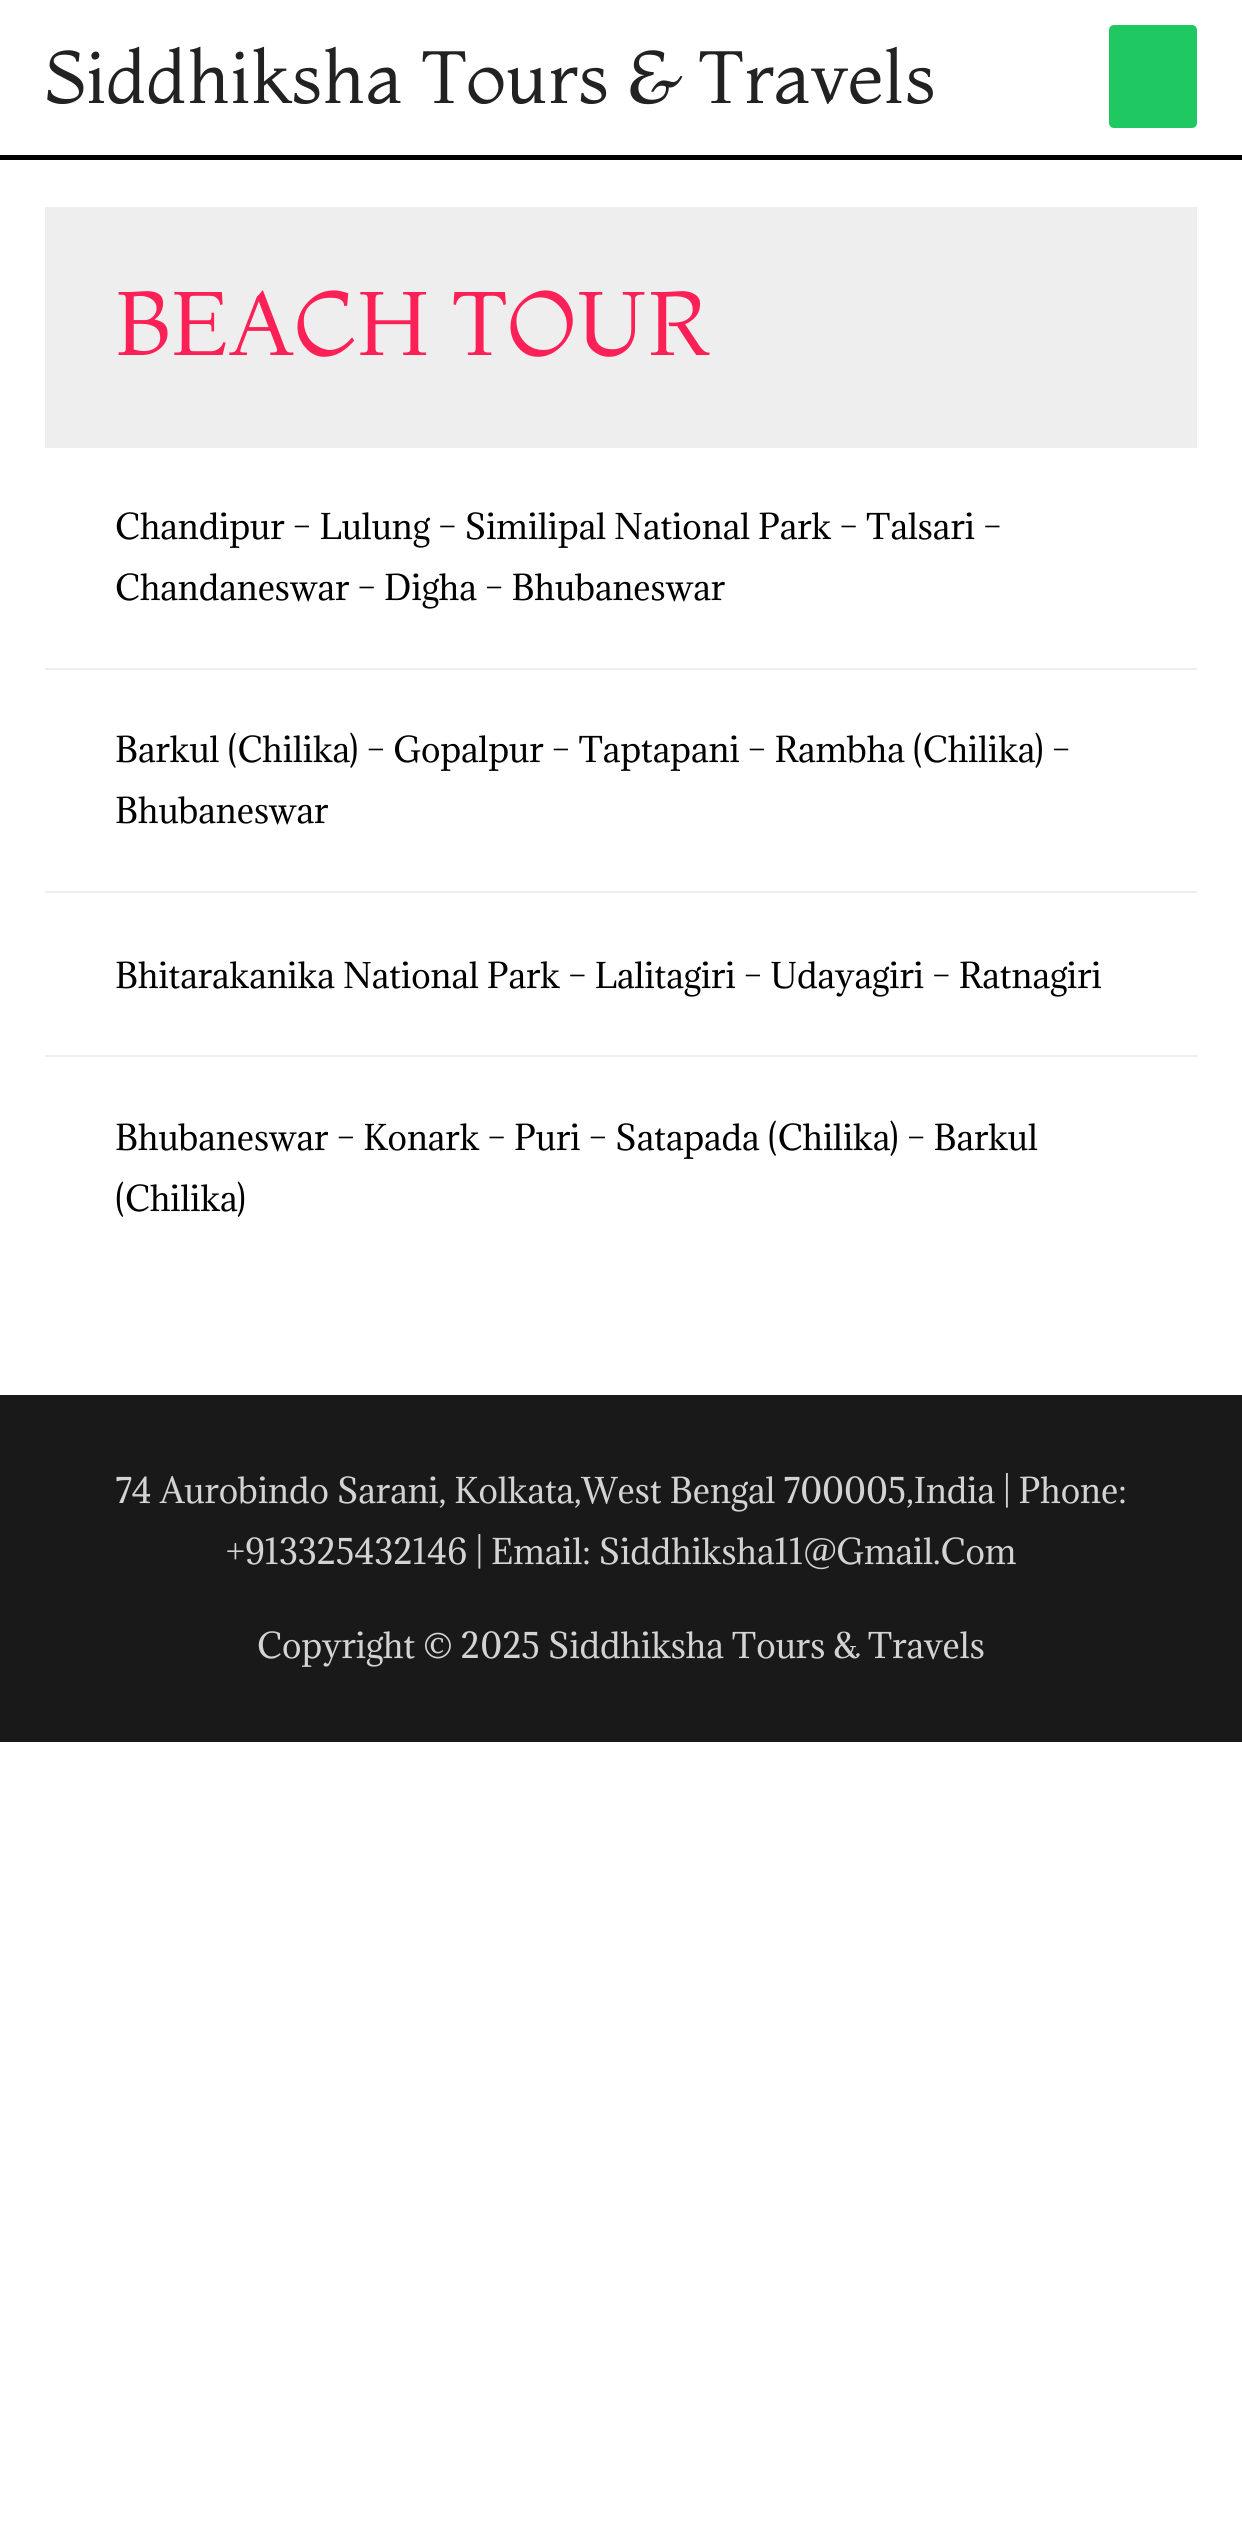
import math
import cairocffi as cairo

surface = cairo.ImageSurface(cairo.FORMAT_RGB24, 1242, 2531)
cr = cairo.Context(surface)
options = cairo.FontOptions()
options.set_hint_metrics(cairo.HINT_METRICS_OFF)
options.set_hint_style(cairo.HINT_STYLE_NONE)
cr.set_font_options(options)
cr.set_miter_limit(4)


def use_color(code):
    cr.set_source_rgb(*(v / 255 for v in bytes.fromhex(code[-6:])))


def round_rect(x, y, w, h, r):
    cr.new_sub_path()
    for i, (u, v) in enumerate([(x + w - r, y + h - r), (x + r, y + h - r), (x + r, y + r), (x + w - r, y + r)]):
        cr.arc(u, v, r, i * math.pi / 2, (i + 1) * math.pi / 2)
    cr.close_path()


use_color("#ffffff")
cr.paint()
use_color("#000000")
cr.rectangle(0, 155, 1242, 5)
cr.fill()
cr.select_font_face("Montaga")
cr.set_font_size(73.9)
use_color("#222222")
cr.move_to(45, 103)
cr.show_text("Siddhiksha Tours & Travels")
use_color("#20c861")
round_rect(1109, 25, 88, 103, 5)
cr.fill()
use_color("#eeeeee")
cr.rectangle(45, 207, 1152, 241)
cr.fill()
cr.set_font_size(90)
use_color("#fb2056")
cr.move_to(115, 355)
cr.show_text("BEACH TOUR")
use_color("#eeeeee")
cr.rectangle(45, 668, 1152, 2)
cr.fill()
cr.select_font_face("Adamina")
cr.set_font_size(32.8)
use_color("#000000")
cr.move_to(115, 539)
cr.show_text("Chandipur – Lulung – Similipal National Park – Talsari –")
cr.move_to(115, 600)
cr.show_text("Chandaneswar – Digha – Bhubaneswar")
use_color("#eeeeee")
cr.rectangle(45, 891, 1152, 2)
cr.fill()
use_color("#000000")
cr.move_to(115, 762)
cr.show_text("Barkul (Chilika) – Gopalpur – Taptapani – Rambha (Chilika) –")
cr.move_to(115, 823)
cr.show_text("Bhubaneswar")
use_color("#eeeeee")
cr.rectangle(45, 1055, 1152, 2)
cr.fill()
use_color("#000000")
cr.move_to(115, 988)
cr.show_text("Bhitarakanika National Park – Lalitagiri – Udayagiri – Ratnagiri")
cr.move_to(115, 1150)
cr.show_text("Bhubaneswar – Konark – Puri – Satapada (Chilika) – Barkul")
cr.move_to(115, 1211)
cr.show_text("(Chilika)")
use_color("#191919")
cr.rectangle(0, 1395, 1242, 347)
cr.fill()
use_color("#d3d3d3")
cr.move_to(115, 1503)
cr.show_text("74 Aurobindo Sarani, Kolkata,West Bengal 700005,India")
cr.move_to(1003, 1503)
cr.show_text("| Phone:")
cr.move_to(226, 1564)
cr.show_text("+913325432146 | Email: Siddhiksha11@Gmail.Com")
cr.move_to(257, 1658)
cr.show_text("Copyright © 2025 Siddhiksha Tours & Travels")
surface.write_to_png("result.png")
